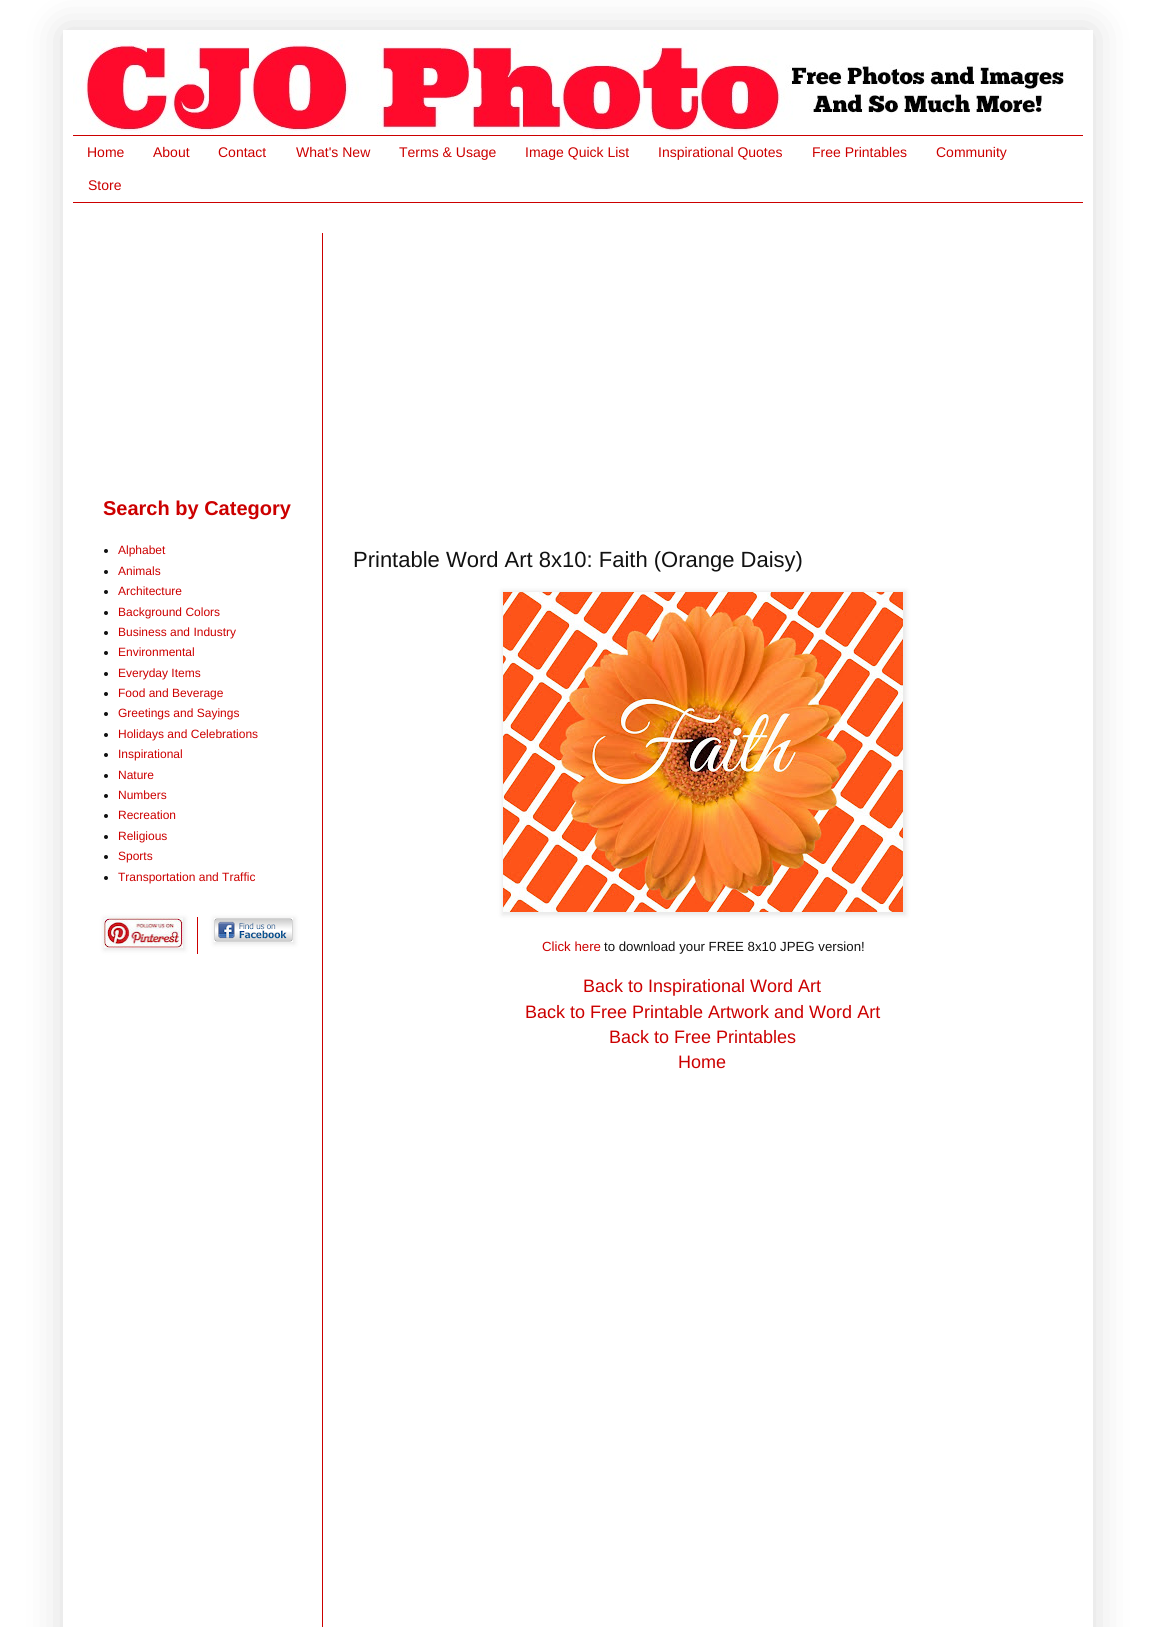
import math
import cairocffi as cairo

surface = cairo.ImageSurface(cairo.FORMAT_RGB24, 1155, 1627)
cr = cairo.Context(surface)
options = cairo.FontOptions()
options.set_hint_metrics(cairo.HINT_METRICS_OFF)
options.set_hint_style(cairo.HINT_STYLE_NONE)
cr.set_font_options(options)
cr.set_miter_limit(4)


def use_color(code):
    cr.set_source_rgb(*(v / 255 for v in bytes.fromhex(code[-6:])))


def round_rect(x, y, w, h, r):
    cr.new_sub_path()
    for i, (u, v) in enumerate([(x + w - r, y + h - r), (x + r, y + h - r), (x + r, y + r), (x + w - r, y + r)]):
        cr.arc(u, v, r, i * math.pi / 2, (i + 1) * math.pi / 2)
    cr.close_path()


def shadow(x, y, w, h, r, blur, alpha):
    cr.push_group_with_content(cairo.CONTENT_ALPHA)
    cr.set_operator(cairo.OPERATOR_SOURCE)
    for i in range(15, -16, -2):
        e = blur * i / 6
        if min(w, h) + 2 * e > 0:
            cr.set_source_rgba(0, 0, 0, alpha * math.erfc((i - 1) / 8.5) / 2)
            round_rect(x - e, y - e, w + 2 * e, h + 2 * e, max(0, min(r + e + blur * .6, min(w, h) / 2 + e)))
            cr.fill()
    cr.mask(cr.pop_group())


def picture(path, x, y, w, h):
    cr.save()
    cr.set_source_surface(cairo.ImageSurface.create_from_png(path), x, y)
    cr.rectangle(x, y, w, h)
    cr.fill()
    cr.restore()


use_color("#ffffff")
cr.paint()
cr.save()
cr.set_fill_rule(cairo.FILL_RULE_EVEN_ODD)
cr.new_path()
cr.move_to(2, 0)
cr.line_to(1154, 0)
cr.line_to(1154, 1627)
cr.line_to(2, 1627)
cr.close_path()
cr.move_to(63, 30)
cr.line_to(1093, 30)
cr.line_to(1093, 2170)
cr.line_to(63, 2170)
cr.close_path()
cr.clip()
use_color("#000000")
shadow(63, 30, 1030, 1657, 0, 20, 0.15)
cr.restore()
picture("img1.png", 73, 40, 991, 95)
use_color("#cc0000")
cr.rectangle(73, 135, 1010, 1)
cr.fill()
cr.rectangle(73, 202, 1010, 1)
cr.fill()
cr.select_font_face("Liberation Sans")
cr.set_font_size(14)
cr.move_to(87, 157)
cr.show_text("Home")
cr.move_to(153, 157)
cr.show_text("About")
cr.move_to(218, 157)
cr.show_text("Contact")
cr.move_to(296, 157)
cr.show_text("What's New")
cr.move_to(399, 157)
cr.show_text("Terms & Usage")
cr.move_to(525, 157)
cr.show_text("Image Quick List")
cr.move_to(658, 157)
cr.show_text("Inspirational Quotes")
cr.move_to(812, 157)
cr.show_text("Free Printables")
cr.move_to(936, 157)
cr.show_text("Community")
cr.move_to(88, 190)
cr.show_text("Store")
cr.rectangle(322, 233, 1, 1394)
cr.fill()
cr.select_font_face("Liberation Sans", cairo.FONT_SLANT_NORMAL, cairo.FONT_WEIGHT_BOLD)
cr.set_font_size(20)
cr.move_to(103, 515)
cr.show_text("Search by Category")
use_color("#111111")
cr.new_path()
cr.arc(106, 551, 2, 0, 2 * math.pi)
cr.fill()
cr.select_font_face("Liberation Sans")
cr.set_font_size(12)
use_color("#cc0000")
cr.move_to(118, 554)
cr.show_text("Alphabet")
use_color("#111111")
cr.new_path()
cr.arc(106, 572, 2, 0, 2 * math.pi)
cr.fill()
use_color("#cc0000")
cr.move_to(118, 575)
cr.show_text("Animals")
use_color("#111111")
cr.new_path()
cr.arc(106, 592, 2, 0, 2 * math.pi)
cr.fill()
use_color("#cc0000")
cr.move_to(118, 595)
cr.show_text("Architecture")
use_color("#111111")
cr.new_path()
cr.arc(106, 613, 2, 0, 2 * math.pi)
cr.fill()
use_color("#cc0000")
cr.move_to(118, 616)
cr.show_text("Background Colors")
use_color("#111111")
cr.new_path()
cr.arc(106, 633, 2, 0, 2 * math.pi)
cr.fill()
use_color("#cc0000")
cr.move_to(118, 636)
cr.show_text("Business and Industry")
use_color("#111111")
cr.new_path()
cr.arc(106, 653, 2, 0, 2 * math.pi)
cr.fill()
use_color("#cc0000")
cr.move_to(118, 656)
cr.show_text("Environmental")
use_color("#111111")
cr.new_path()
cr.arc(106, 674, 2, 0, 2 * math.pi)
cr.fill()
use_color("#cc0000")
cr.move_to(118, 677)
cr.show_text("Everyday Items")
use_color("#111111")
cr.new_path()
cr.arc(106, 694, 2, 0, 2 * math.pi)
cr.fill()
use_color("#cc0000")
cr.move_to(118, 697)
cr.show_text("Food and Beverage")
use_color("#111111")
cr.new_path()
cr.arc(106, 714, 2, 0, 2 * math.pi)
cr.fill()
use_color("#cc0000")
cr.move_to(118, 717)
cr.show_text("Greetings and Sayings")
use_color("#111111")
cr.new_path()
cr.arc(106, 735, 2, 0, 2 * math.pi)
cr.fill()
use_color("#cc0000")
cr.move_to(118, 738)
cr.show_text("Holidays and Celebrations")
use_color("#111111")
cr.new_path()
cr.arc(106, 755, 2, 0, 2 * math.pi)
cr.fill()
use_color("#cc0000")
cr.move_to(118, 758)
cr.show_text("Inspirational")
use_color("#111111")
cr.new_path()
cr.arc(106, 776, 2, 0, 2 * math.pi)
cr.fill()
use_color("#cc0000")
cr.move_to(118, 779)
cr.show_text("Nature")
use_color("#111111")
cr.new_path()
cr.arc(106, 796, 2, 0, 2 * math.pi)
cr.fill()
use_color("#cc0000")
cr.move_to(118, 799)
cr.show_text("Numbers")
use_color("#111111")
cr.new_path()
cr.arc(106, 816, 2, 0, 2 * math.pi)
cr.fill()
use_color("#cc0000")
cr.move_to(118, 819)
cr.show_text("Recreation")
use_color("#111111")
cr.new_path()
cr.arc(106, 837, 2, 0, 2 * math.pi)
cr.fill()
use_color("#cc0000")
cr.move_to(118, 840)
cr.show_text("Religious")
use_color("#111111")
cr.new_path()
cr.arc(106, 857, 2, 0, 2 * math.pi)
cr.fill()
use_color("#cc0000")
cr.move_to(118, 860)
cr.show_text("Sports")
use_color("#111111")
cr.new_path()
cr.arc(106, 878, 2, 0, 2 * math.pi)
cr.fill()
use_color("#cc0000")
cr.move_to(118, 881)
cr.show_text("Transportation and Traffic")
use_color("#000000")
shadow(104, 918, 81, 32, 0, 2.5, 0.1)
picture("img2.png", 104, 918, 79, 30)
use_color("#cc0000")
cr.rectangle(197, 917, 1, 37)
cr.fill()
use_color("#000000")
shadow(214, 918, 81, 26, 0, 2.5, 0.1)
picture("img3.png", 214, 918, 79, 24)
cr.set_font_size(22)
use_color("#111111")
cr.move_to(353, 567)
cr.show_text("Printable Word Art 8x10: Faith (Orange Daisy)")
use_color("#000000")
shadow(502, 591, 404, 324, 0, 2.5, 0.1)
picture("img4.png", 503, 592, 400, 320)
cr.set_font_size(13.25)
use_color("#cc0000")
cr.move_to(542, 951)
cr.show_text("Click here")
use_color("#111111")
cr.move_to(604, 951)
cr.show_text("to download your FREE 8x10 JPEG version!")
cr.set_font_size(18)
use_color("#cc0000")
cr.move_to(583, 992)
cr.show_text("Back to Inspirational Word Art")
cr.move_to(525, 1018)
cr.show_text("Back to Free Printable Artwork and Word Art")
cr.move_to(609, 1043)
cr.show_text("Back to Free Printables")
cr.move_to(678, 1068)
cr.show_text("Home")
surface.write_to_png("result.png")
